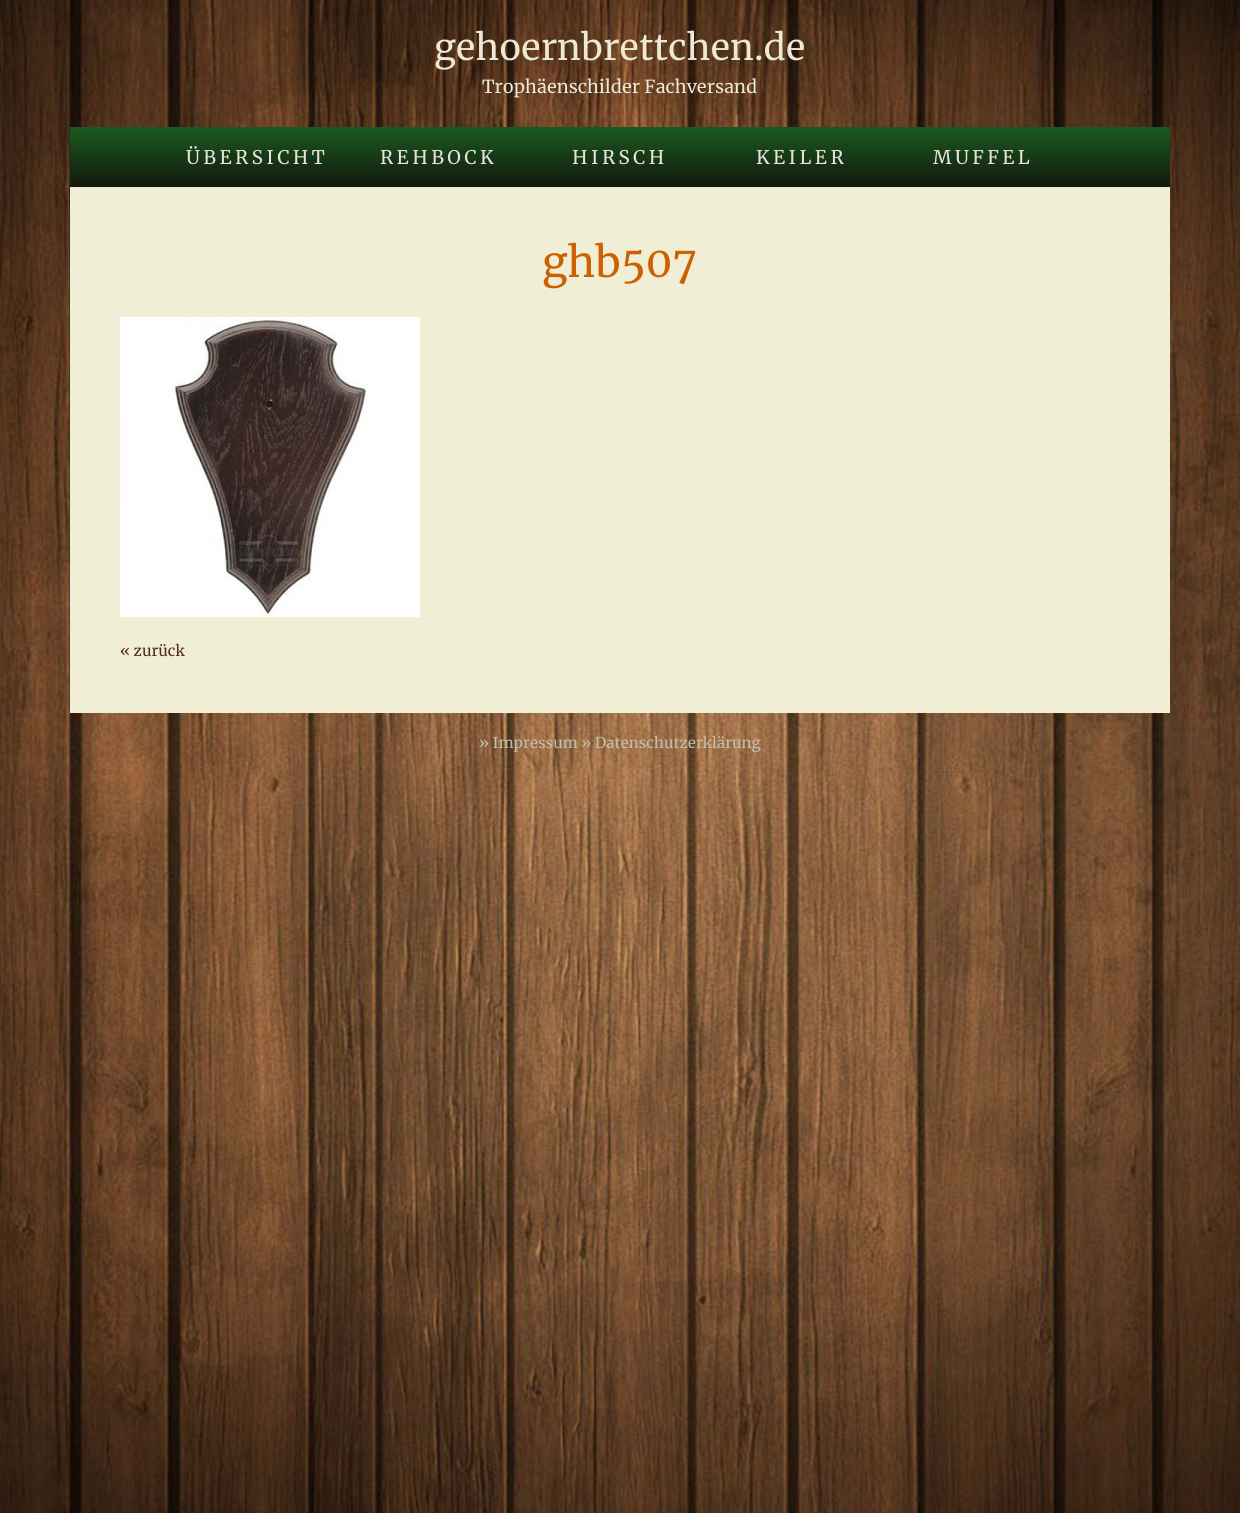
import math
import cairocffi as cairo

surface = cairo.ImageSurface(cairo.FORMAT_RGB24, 1240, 1513)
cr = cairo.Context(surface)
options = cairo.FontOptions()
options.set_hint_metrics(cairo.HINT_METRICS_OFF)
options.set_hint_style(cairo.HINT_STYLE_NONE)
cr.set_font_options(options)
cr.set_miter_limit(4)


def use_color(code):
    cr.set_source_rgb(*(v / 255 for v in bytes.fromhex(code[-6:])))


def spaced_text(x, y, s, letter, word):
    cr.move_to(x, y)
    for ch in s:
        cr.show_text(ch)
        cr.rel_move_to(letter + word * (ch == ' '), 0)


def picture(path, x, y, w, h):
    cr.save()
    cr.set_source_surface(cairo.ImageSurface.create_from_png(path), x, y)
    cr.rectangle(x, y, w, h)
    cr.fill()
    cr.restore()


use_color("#ffffff")
cr.paint()
picture("img1.png", 0, 0, 1240, 1513)
cr.select_font_face("Merriweather")
cr.set_font_size(36)
use_color("#eee9d5")
cr.move_to(434, 60)
cr.show_text("gehoernbrettchen.de")
cr.set_font_size(18)
cr.move_to(482, 93)
cr.show_text("Trophäenschilder Fachversand")
gradient = cairo.LinearGradient(620, 127, 620, 187)
gradient.add_color_stop_rgba(0, 0.098, 0.357, 0.129, 1)
gradient.add_color_stop_rgba(1, 0.075, 0.094, 0.047, 1)
cr.set_source(gradient)
cr.rectangle(70, 127, 1100, 60)
cr.fill()
cr.set_font_size(18.75)
use_color("#ebe3d8")
spaced_text(186, 164, "ÜBERSICHT", 3.4, 0)
spaced_text(380, 164, "REHBOCK", 3.4, 0)
spaced_text(572, 164, "HIRSCH", 3.4, 0)
spaced_text(756, 164, "KEILER", 3.4, 0)
spaced_text(933, 164, "MUFFEL", 3.4, 0)
use_color("#f0efd6")
cr.rectangle(70, 187, 1100, 526)
cr.fill()
cr.set_font_size(42)
use_color("#cd6000")
cr.move_to(542, 277)
cr.show_text("ghb507")
picture("img2.png", 120, 317, 300, 300)
cr.set_font_size(15)
use_color("#512a1a")
cr.move_to(120, 656)
cr.show_text("« zurück")
use_color("#c3bfae")
cr.move_to(479, 748)
cr.show_text("» Impressum » Datenschutzerklärung")
surface.write_to_png("result.png")
